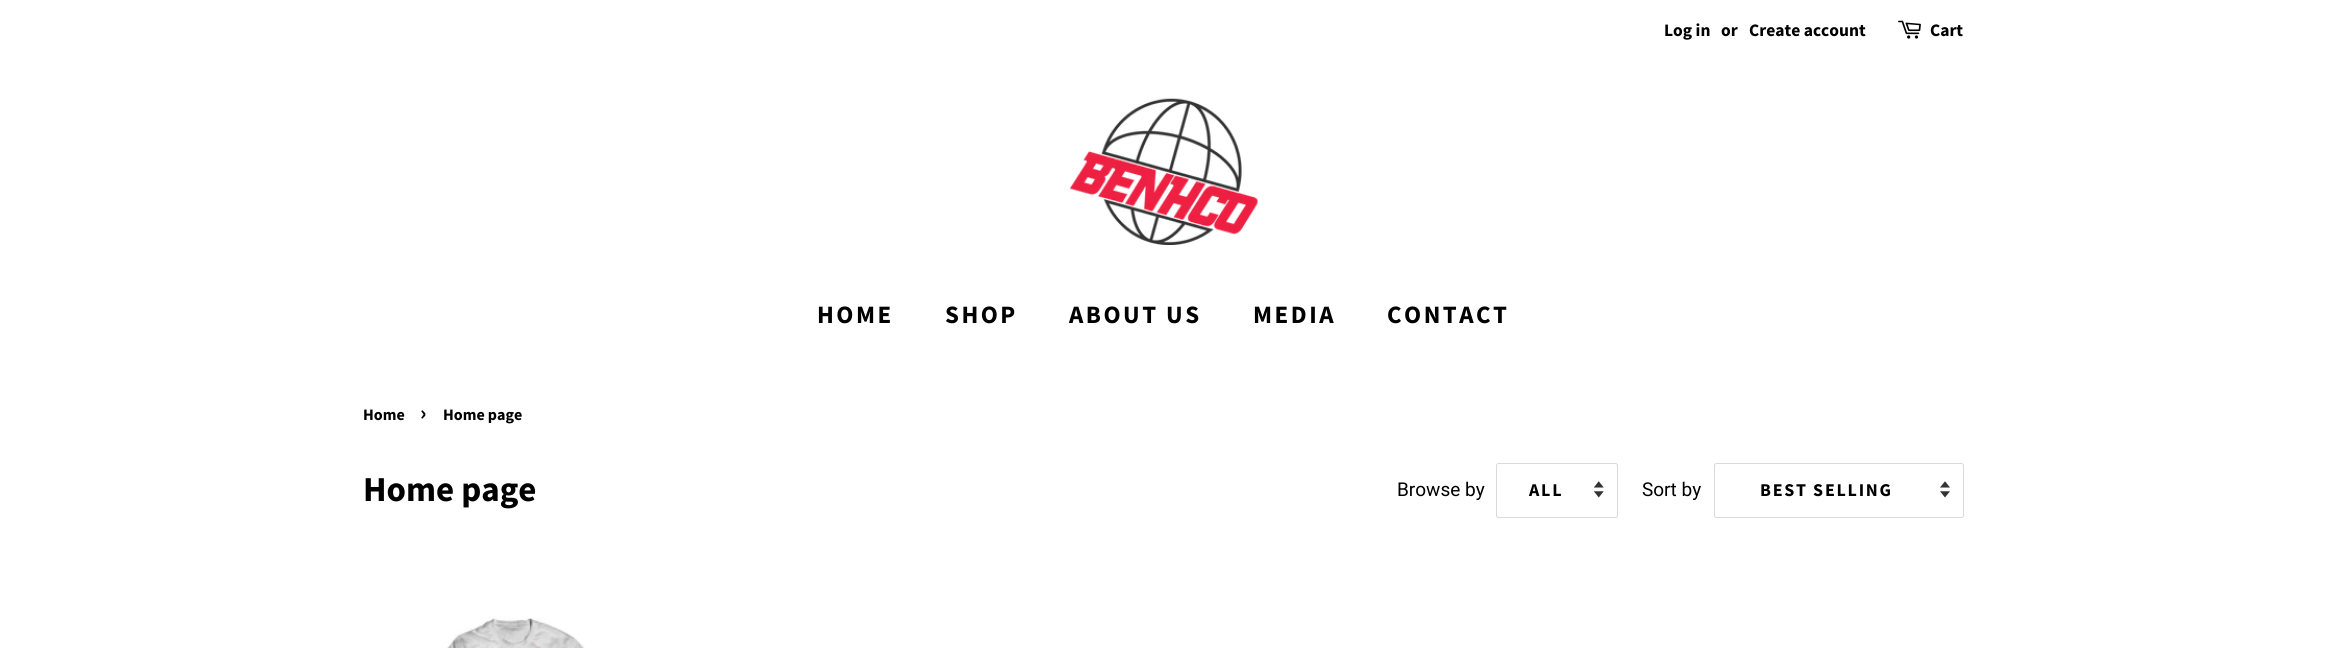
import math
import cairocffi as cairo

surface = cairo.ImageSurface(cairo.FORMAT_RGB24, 2326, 648)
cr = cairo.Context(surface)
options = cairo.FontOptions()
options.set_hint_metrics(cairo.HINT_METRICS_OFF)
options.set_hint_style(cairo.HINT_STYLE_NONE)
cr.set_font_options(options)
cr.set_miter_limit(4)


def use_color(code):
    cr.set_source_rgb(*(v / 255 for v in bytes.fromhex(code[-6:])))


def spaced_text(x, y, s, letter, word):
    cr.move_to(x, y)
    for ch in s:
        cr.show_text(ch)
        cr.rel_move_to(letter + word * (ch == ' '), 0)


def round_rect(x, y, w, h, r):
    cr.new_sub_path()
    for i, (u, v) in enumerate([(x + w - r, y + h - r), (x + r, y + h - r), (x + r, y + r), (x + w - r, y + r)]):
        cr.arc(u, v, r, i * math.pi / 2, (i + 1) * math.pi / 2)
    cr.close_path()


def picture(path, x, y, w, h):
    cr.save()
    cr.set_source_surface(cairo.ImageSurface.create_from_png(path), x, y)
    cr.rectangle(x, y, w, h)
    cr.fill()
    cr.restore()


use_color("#ffffff")
cr.paint()
cr.select_font_face("Source Sans Pro", cairo.FONT_SLANT_NORMAL, cairo.FONT_WEIGHT_BOLD)
cr.set_font_size(17.5)
use_color("#000000")
cr.move_to(1664, 36)
cr.show_text("Log in")
cr.move_to(1721, 36)
cr.show_text("or")
cr.move_to(1749, 36)
cr.show_text("Create account")
picture("img1.png", 1898, 20, 23, 19)
cr.move_to(1930, 36)
cr.show_text("Cart")
picture("img2.png", 1070, 98, 188, 147)
cr.set_font_size(25)
spaced_text(817, 323, "HOME", 2.5, 0)
spaced_text(945, 323, "SHOP", 2.5, 0)
spaced_text(1069, 323, "ABOUT US", 2.5, 0)
spaced_text(1253, 323, "MEDIA", 2.5, 0)
spaced_text(1387, 323, "CONTACT", 2.5, 0)
cr.set_font_size(16)
cr.move_to(363, 420)
cr.show_text("Home")
cr.set_font_size(22)
cr.move_to(420, 420)
cr.show_text("›")
cr.set_font_size(16)
cr.move_to(443, 420)
cr.show_text("Home page")
cr.set_font_size(35)
cr.move_to(363, 501)
cr.show_text("Home page")
cr.select_font_face("Roboto")
cr.set_font_size(19)
cr.move_to(1397, 496)
cr.show_text("Browse by")
picture("img3.png", 1594, 481, 10, 17)
round_rect(1496.5, 463.5, 121, 54, 2)
use_color("#d9d9d9")
cr.set_line_width(1)
cr.stroke()
cr.select_font_face("Source Sans Pro", cairo.FONT_SLANT_NORMAL, cairo.FONT_WEIGHT_BOLD)
cr.set_font_size(18)
use_color("#000000")
spaced_text(1529, 496, "ALL", 1.75, 0)
cr.select_font_face("Roboto")
cr.set_font_size(19)
cr.move_to(1642, 496)
cr.show_text("Sort by")
picture("img4.png", 1940, 481, 10, 17)
round_rect(1714.5, 463.5, 249, 54, 2)
use_color("#d9d9d9")
cr.stroke()
cr.select_font_face("Source Sans Pro", cairo.FONT_SLANT_NORMAL, cairo.FONT_WEIGHT_BOLD)
cr.set_font_size(18)
use_color("#000000")
spaced_text(1760, 496, "BEST SELLING", 1.75, 0)
picture("img5.png", 447, 617, 138, 31)
surface.write_to_png("result.png")
